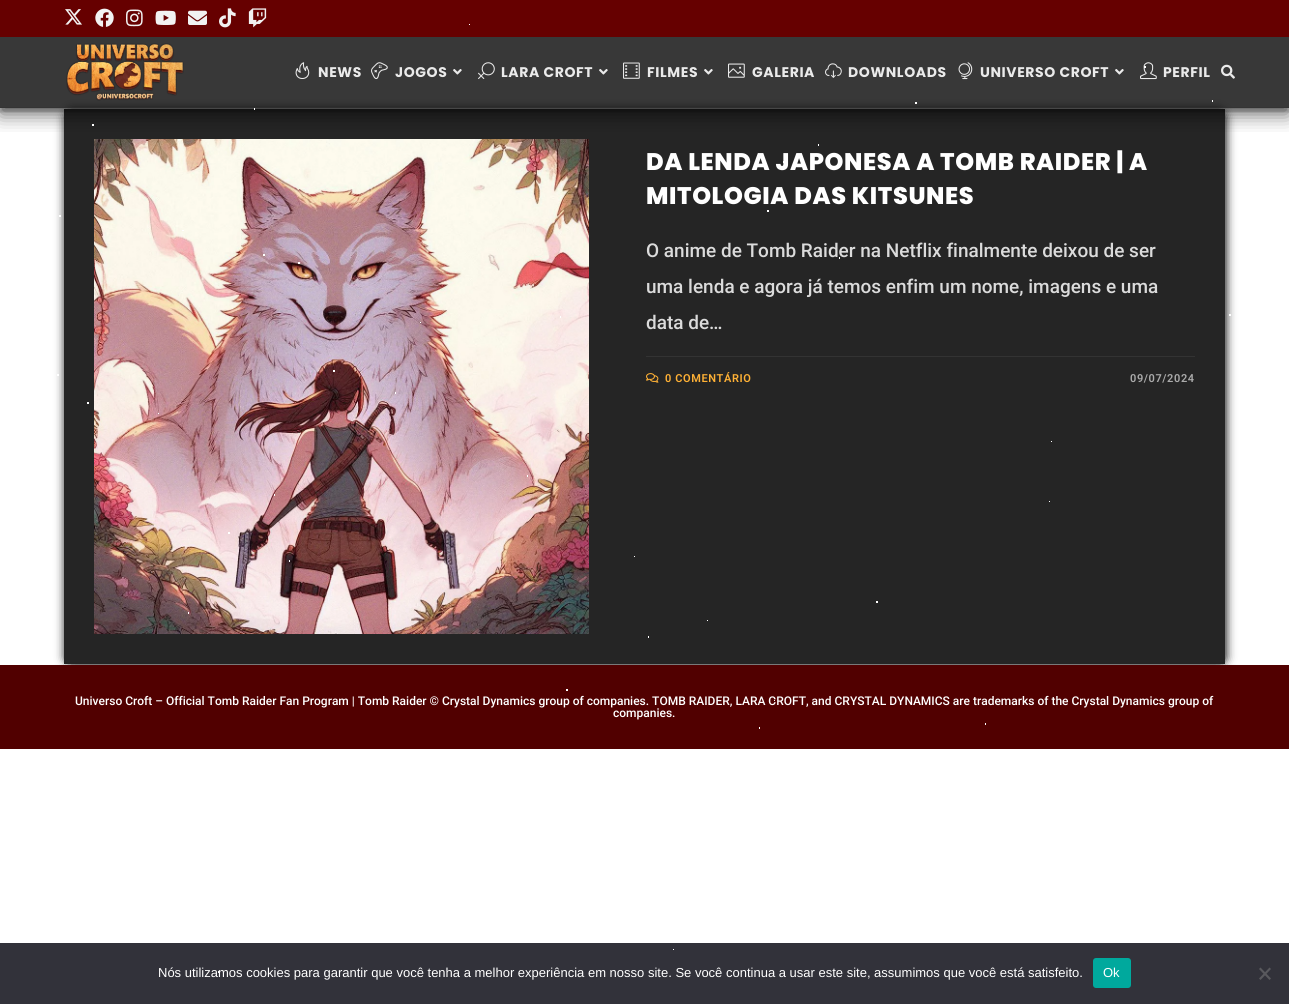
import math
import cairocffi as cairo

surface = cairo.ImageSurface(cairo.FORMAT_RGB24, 1289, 1004)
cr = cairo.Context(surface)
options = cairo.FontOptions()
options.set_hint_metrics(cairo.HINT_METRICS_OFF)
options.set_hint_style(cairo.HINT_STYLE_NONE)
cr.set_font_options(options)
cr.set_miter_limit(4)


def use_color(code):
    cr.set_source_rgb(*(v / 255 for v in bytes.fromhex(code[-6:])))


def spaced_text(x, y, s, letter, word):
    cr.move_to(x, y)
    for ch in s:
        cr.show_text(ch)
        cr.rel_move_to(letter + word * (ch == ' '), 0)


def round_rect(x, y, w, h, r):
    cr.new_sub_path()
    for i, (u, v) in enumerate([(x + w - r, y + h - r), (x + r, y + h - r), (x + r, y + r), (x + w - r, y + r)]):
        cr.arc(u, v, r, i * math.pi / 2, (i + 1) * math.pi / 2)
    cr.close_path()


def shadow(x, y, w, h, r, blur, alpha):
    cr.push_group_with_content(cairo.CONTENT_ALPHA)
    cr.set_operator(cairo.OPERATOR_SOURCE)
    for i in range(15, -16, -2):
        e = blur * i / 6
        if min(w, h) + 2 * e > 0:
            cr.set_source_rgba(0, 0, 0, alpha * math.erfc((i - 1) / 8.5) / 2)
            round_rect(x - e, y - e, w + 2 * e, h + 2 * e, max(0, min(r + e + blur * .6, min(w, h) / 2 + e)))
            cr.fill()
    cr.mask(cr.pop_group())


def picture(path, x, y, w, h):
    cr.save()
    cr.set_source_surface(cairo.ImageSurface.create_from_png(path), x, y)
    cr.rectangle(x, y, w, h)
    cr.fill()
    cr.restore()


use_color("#ffffff")
cr.paint()
cr.save()
cr.set_fill_rule(cairo.FILL_RULE_EVEN_ODD)
cr.new_path()
cr.move_to(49, 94)
cr.line_to(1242, 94)
cr.line_to(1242, 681)
cr.line_to(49, 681)
cr.close_path()
cr.move_to(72, 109)
cr.line_to(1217, 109)
cr.curve_to(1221.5, 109, 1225, 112.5, 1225, 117)
cr.line_to(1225, 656)
cr.curve_to(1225, 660.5, 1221.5, 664, 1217, 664)
cr.line_to(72, 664)
cr.curve_to(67.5, 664, 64, 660.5, 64, 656)
cr.line_to(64, 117)
cr.curve_to(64, 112.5, 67.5, 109, 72, 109)
cr.close_path()
cr.clip()
use_color("#000000")
shadow(65, 110, 1161, 555, 8, 5, 1)
cr.restore()
cr.set_source_rgba(0.129, 0.129, 0.129, 0.98)
cr.rectangle(64, 109, 1161, 555)
cr.fill()
picture("img19.png", 94, 139, 495, 495)
cr.save()
cr.rectangle(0, 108, 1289, 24)
cr.clip()
use_color("#000000")
shadow(0, 43, 1289, 71, 0, 10, 0.6)
cr.restore()
use_color("#660000")
cr.rectangle(0, 0, 1289, 37)
cr.fill()
use_color("#ffffff")
cr.rectangle(469, 24, 1, 1)
cr.fill()
cr.save()
cr.rectangle(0, 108, 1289, 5)
cr.clip()
use_color("#000000")
shadow(0, 41, 1289, 71, 0, 1, 0.2)
cr.restore()
cr.set_source_rgba(0.027, 0.027, 0.027, 0.8)
cr.rectangle(0, 37, 1289, 71)
cr.fill()
picture("img17.png", 1140, 62, 17, 18)
use_color("#ffffff")
cr.rectangle(1144, 66, 2, 2)
cr.fill()
picture("img1.png", 65, 9, 17, 16)
picture("img2.png", 95, 8, 19, 19)
picture("img3.png", 126, 9, 17, 18)
picture("img4.png", 155, 10, 21, 15)
picture("img5.png", 188, 10, 19, 15)
picture("img6.png", 219, 8, 17, 20)
picture("img7.png", 248, 8, 19, 20)
cr.set_source_rgba(0.2, 0.2, 0.2, 0.58)
cr.rectangle(0, 107, 1289, 1)
cr.fill()
picture("img8.png", 66, 43, 118, 58)
picture("img9.png", 295, 62, 15, 17)
cr.select_font_face("Poppins", cairo.FONT_SLANT_NORMAL, cairo.FONT_WEIGHT_BOLD)
cr.set_font_size(14)
use_color("#eaeaea")
spaced_text(318, 77, "NEWS", 0.6, 0)
picture("img10.png", 371, 62, 17, 18)
spaced_text(395, 77, "JOGOS", 0.6, 0)
picture("img11.png", 453, 69, 9, 6)
picture("img12.png", 478, 62, 17, 17)
spaced_text(501, 77, "LARA CROFT", 0.6, 0)
picture("img11.png", 599, 69, 9, 6)
picture("img13.png", 623, 62, 17, 17)
spaced_text(647, 77, "FILMES", 0.6, 0)
picture("img11.png", 704, 69, 9, 6)
picture("img14.png", 728, 63, 17, 15)
spaced_text(752, 77, "GALERIA", 0.6, 0)
picture("img15.png", 825, 63, 17, 15)
spaced_text(848, 77, "DOWNLOADS", 0.6, 0)
picture("img16.png", 958, 62, 15, 18)
spaced_text(980, 77, "UNIVERSO CROFT", 0.6, 0)
picture("img11.png", 1115, 69, 9, 6)
spaced_text(1163, 77, "PERFIL", 0.6, 0)
picture("img18.png", 1221, 64, 14, 15)
cr.select_font_face("Poppins ExtraBold")
cr.set_font_size(24)
use_color("#ffffff")
spaced_text(646, 170, "DA LENDA JAPONESA A TOMB RAIDER | A", 0.6, 0)
spaced_text(646, 204, "MITOLOGIA DAS KITSUNES", 0.6, 0)
cr.select_font_face("Roboto Medium")
cr.set_font_size(19)
use_color("#dbdbdb")
cr.move_to(646, 257)
cr.show_text("O anime de Tomb Raider na Netflix finalmente deixou de ser")
cr.move_to(646, 293)
cr.show_text("uma lenda e agora já temos enfim um nome, imagens e uma")
cr.move_to(646, 329)
cr.show_text("data de…")
use_color("#333333")
cr.rectangle(646, 356, 549, 1)
cr.fill()
picture("img20.png", 646, 373, 13, 10)
cr.select_font_face("Roboto SemiBold")
cr.set_font_size(11)
use_color("#ffb135")
spaced_text(665, 382, "0 COMENTÁRIO", 0.6, 0)
use_color("#ababab")
spaced_text(1130, 382, "09/07/2024", 0.6, 0)
use_color("#510000")
cr.rectangle(0, 665, 1289, 84)
cr.fill()
cr.select_font_face("Roboto Medium")
cr.set_font_size(12)
use_color("#ffffff")
cr.move_to(75, 705)
cr.show_text("Universo Croft – Official Tomb Raider Fan Program | Tomb Raider © Crystal Dynamics group of companies. TOMB RAIDER, LARA CROFT, and CRYSTAL DYNAMICS are trademarks of the Crystal Dynamics group of")
cr.move_to(613, 717)
cr.show_text("companies.")
cr.rectangle(1212, 100, 1, 2)
cr.fill()
cr.rectangle(915, 102, 2, 2)
cr.fill()
cr.rectangle(254, 108, 1, 2)
cr.fill()
cr.rectangle(92, 124, 2, 2)
cr.fill()
cr.rectangle(818, 144, 1, 2)
cr.fill()
cr.rectangle(783, 161, 2, 2)
cr.fill()
cr.rectangle(767, 210, 2, 2)
cr.fill()
cr.rectangle(59, 215, 2, 2)
cr.fill()
cr.rectangle(182, 230, 2, 1)
cr.fill()
cr.rectangle(263, 254, 2, 2)
cr.fill()
cr.rectangle(839, 257, 1, 2)
cr.fill()
cr.rectangle(298, 262, 2, 2)
cr.fill()
cr.rectangle(1229, 314, 2, 2)
cr.fill()
cr.rectangle(560, 316, 1, 2)
cr.fill()
cr.rectangle(420, 322, 1, 1)
cr.fill()
cr.rectangle(333, 370, 2, 2)
cr.fill()
cr.rectangle(57, 374, 2, 2)
cr.fill()
cr.rectangle(395, 392, 1, 2)
cr.fill()
cr.rectangle(87, 402, 2, 2)
cr.fill()
cr.rectangle(158, 413, 1, 1)
cr.fill()
cr.rectangle(1051, 441, 1, 1)
cr.fill()
cr.rectangle(527, 475, 1, 2)
cr.fill()
cr.rectangle(274, 494, 1, 2)
cr.fill()
cr.rectangle(1049, 501, 1, 1)
cr.fill()
cr.rectangle(228, 532, 2, 2)
cr.fill()
cr.rectangle(634, 556, 1, 1)
cr.fill()
cr.rectangle(289, 560, 1, 2)
cr.fill()
cr.rectangle(876, 601, 2, 2)
cr.fill()
cr.rectangle(188, 612, 1, 2)
cr.fill()
cr.rectangle(707, 620, 1, 1)
cr.fill()
cr.rectangle(648, 636, 1, 2)
cr.fill()
cr.rectangle(566, 689, 2, 2)
cr.fill()
cr.rectangle(774, 700, 1, 1)
cr.fill()
cr.rectangle(985, 723, 1, 2)
cr.fill()
cr.rectangle(759, 727, 1, 2)
cr.fill()
use_color("#32323a")
cr.rectangle(0, 943, 1289, 61)
cr.fill()
use_color("#ffffff")
cr.rectangle(673, 949, 1, 1)
cr.fill()
cr.select_font_face("Liberation Sans")
cr.set_font_size(13)
cr.move_to(158, 977)
cr.show_text("Nós utilizamos cookies para garantir que você tenha a melhor experiência em nosso site. Se você continua a usar este site, assumimos que você está satisfeito.")
use_color("#00a99d")
round_rect(1093, 958, 38, 30, 3)
cr.fill()
use_color("#ffffff")
cr.move_to(1103, 977)
cr.show_text("Ok")
use_color("#59595d")
cr.new_path()
cr.move_to(1269.5, 967.5)
cr.line_to(1271, 969)
cr.line_to(1260.5, 980)
cr.line_to(1259, 978.5)
cr.close_path()
cr.fill()
cr.new_path()
cr.move_to(1259, 969)
cr.line_to(1260.5, 967.5)
cr.line_to(1271, 978.5)
cr.line_to(1269.5, 980)
cr.close_path()
cr.fill()
use_color("#ffffff")
cr.rectangle(218, 971, 1, 2)
cr.fill()
surface.write_to_png("result.png")
